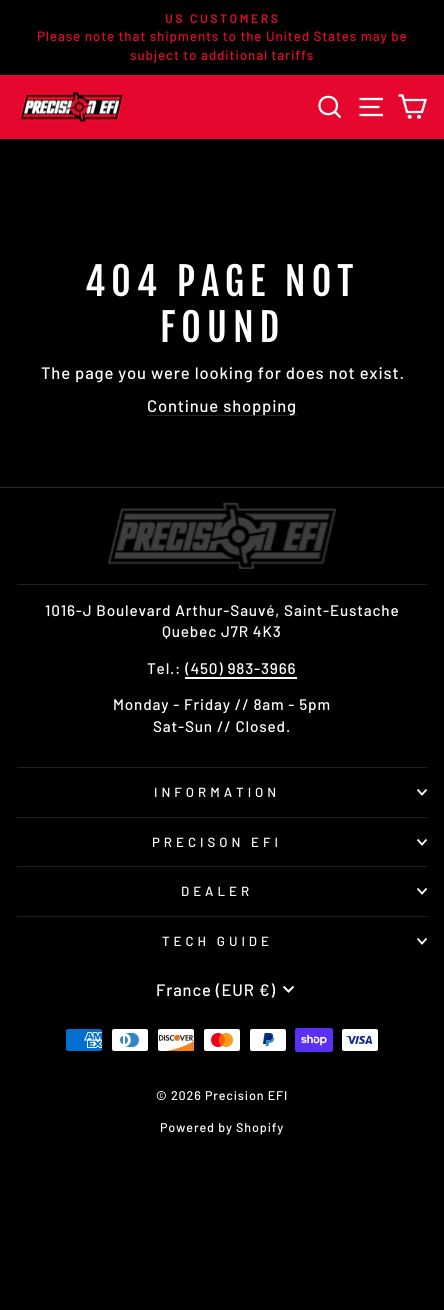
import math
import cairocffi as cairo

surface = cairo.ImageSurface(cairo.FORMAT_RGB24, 444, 1310)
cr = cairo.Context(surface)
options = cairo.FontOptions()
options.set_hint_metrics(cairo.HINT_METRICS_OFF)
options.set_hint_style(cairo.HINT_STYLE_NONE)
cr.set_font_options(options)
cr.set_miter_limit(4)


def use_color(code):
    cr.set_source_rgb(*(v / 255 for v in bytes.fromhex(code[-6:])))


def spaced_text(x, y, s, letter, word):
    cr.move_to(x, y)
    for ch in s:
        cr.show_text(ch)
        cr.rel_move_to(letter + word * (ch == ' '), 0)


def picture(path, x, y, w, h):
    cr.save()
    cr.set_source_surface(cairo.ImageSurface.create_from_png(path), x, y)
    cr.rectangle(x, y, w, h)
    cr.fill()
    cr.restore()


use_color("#000000")
cr.paint()
use_color("#e5072d")
cr.rectangle(0, 75, 444, 64)
cr.fill()
cr.select_font_face("Barlow SemiBold")
cr.set_font_size(12.25)
spaced_text(165, 23, "US CUSTOMERS", 2.5, 0)
cr.select_font_face("Barlow Medium")
cr.set_font_size(13.5)
spaced_text(37, 41, "Please note that shipments to the United States may be", 0.83, 0)
spaced_text(130, 60, "subject to additional tariffs", 0.83, 0)
picture("img1.png", 17, 92, 110, 30)
cr.new_path()
cr.move_to(337, 105.5)
cr.curve_to(337, 117, 319.5, 117, 319.5, 105.5)
cr.curve_to(319.5, 94, 337, 94, 337, 105.5)
cr.close_path()
cr.move_to(340.5, 117.5)
cr.line_to(334.5, 111.5)
use_color("#ffffff")
cr.set_line_width(2.3)
cr.stroke()
cr.new_path()
cr.move_to(359.5, 99)
cr.line_to(383, 99)
cr.move_to(359.5, 107)
cr.line_to(379.5, 107)
cr.move_to(359.5, 115)
cr.line_to(383, 115)
cr.stroke()
cr.new_path()
cr.move_to(403.5, 100)
cr.line_to(425.5, 100)
cr.line_to(422, 112)
cr.line_to(407, 112)
cr.line_to(402.5, 95.5)
cr.line_to(398.5, 95.5)
cr.stroke()
cr.arc(409.7, 116.8, 0.9, 0, 2 * math.pi)
cr.stroke()
cr.arc(419, 116.8, 0.9, 0, 2 * math.pi)
cr.stroke()
cr.select_font_face("Fjalla One")
cr.set_font_size(38.25)
spaced_text(85, 296, "404 PAGE NOT", 5.75, 0)
spaced_text(160, 342, "FOUND", 5.75, 0)
cr.select_font_face("Barlow Medium")
cr.set_font_size(16.6)
spaced_text(41, 379, "The page you were looking for does not exist.", 0.83, 0)
use_color("#262626")
cr.rectangle(147, 415, 150, 1)
cr.fill()
use_color("#ffffff")
spaced_text(147, 412, "Continue shopping", 0.83, 0)
use_color("#2b2a27")
cr.rectangle(0, 487, 444, 1)
cr.fill()
picture("img2.png", 108, 502, 228, 67)
use_color("#1f1f1f")
cr.rectangle(17, 584, 410, 1)
cr.fill()
cr.set_font_size(15.3)
use_color("#ffffff")
spaced_text(45, 616, "1016-J Boulevard Arthur-Sauvé, Saint-Eustache", 0.83, 0)
spaced_text(162, 637, "Quebec J7R 4K3", 0.83, 0)
spaced_text(147, 674, "Tel.: (450) 983-3966", 0.83, 0)
cr.rectangle(185, 677, 112, 2)
cr.fill()
spaced_text(113, 710, "Monday - Friday // 8am - 5pm", 0.83, 0)
spaced_text(153, 732, "Sat-Sun // Closed.", 0.83, 0)
use_color("#1f1f1f")
cr.rectangle(17, 767, 410, 1)
cr.fill()
cr.set_font_size(13.25)
use_color("#ffffff")
spaced_text(154, 797, "INFORMATION", 4, 0)
cr.new_path()
cr.move_to(417.5, 789.5)
cr.line_to(422, 794.5)
cr.line_to(426.5, 789.5)
cr.set_line_width(1.8)
cr.stroke()
use_color("#1f1f1f")
cr.rectangle(17, 817, 410, 1)
cr.fill()
use_color("#ffffff")
spaced_text(152, 847, "PRECISON EFI", 4, 0)
cr.new_path()
cr.move_to(417.5, 839.5)
cr.line_to(422, 844.5)
cr.line_to(426.5, 839.5)
cr.stroke()
use_color("#1f1f1f")
cr.rectangle(17, 866, 410, 1)
cr.fill()
use_color("#ffffff")
spaced_text(181, 896, "DEALER", 4, 0)
cr.new_path()
cr.move_to(417.5, 888.5)
cr.line_to(422, 893.5)
cr.line_to(426.5, 888.5)
cr.stroke()
use_color("#1f1f1f")
cr.rectangle(17, 916, 410, 1)
cr.fill()
use_color("#ffffff")
spaced_text(162, 946, "TECH GUIDE", 4, 0)
cr.new_path()
cr.move_to(417.5, 938.5)
cr.line_to(422, 943.5)
cr.line_to(426.5, 938.5)
cr.stroke()
cr.set_font_size(16.6)
spaced_text(156, 996, "France (EUR €)", 0.83, 0)
cr.new_path()
cr.move_to(283.5, 986.5)
cr.line_to(288.5, 991.5)
cr.line_to(293.5, 986.5)
cr.set_line_width(2)
cr.stroke()
picture("img3.png", 66, 1029, 36, 22)
picture("img4.png", 112, 1029, 36, 22)
picture("img5.png", 158, 1029, 37, 22)
picture("img6.png", 204, 1029, 36, 22)
picture("img7.png", 250, 1029, 36, 22)
picture("img8.png", 295, 1028, 38, 24)
picture("img9.png", 342, 1029, 36, 22)
cr.set_font_size(12.6)
spaced_text(156, 1100, "© 2026 Precision EFI", 0.83, 0)
spaced_text(160, 1132, "Powered by Shopify", 0.83, 0)
surface.write_to_png("result.png")
